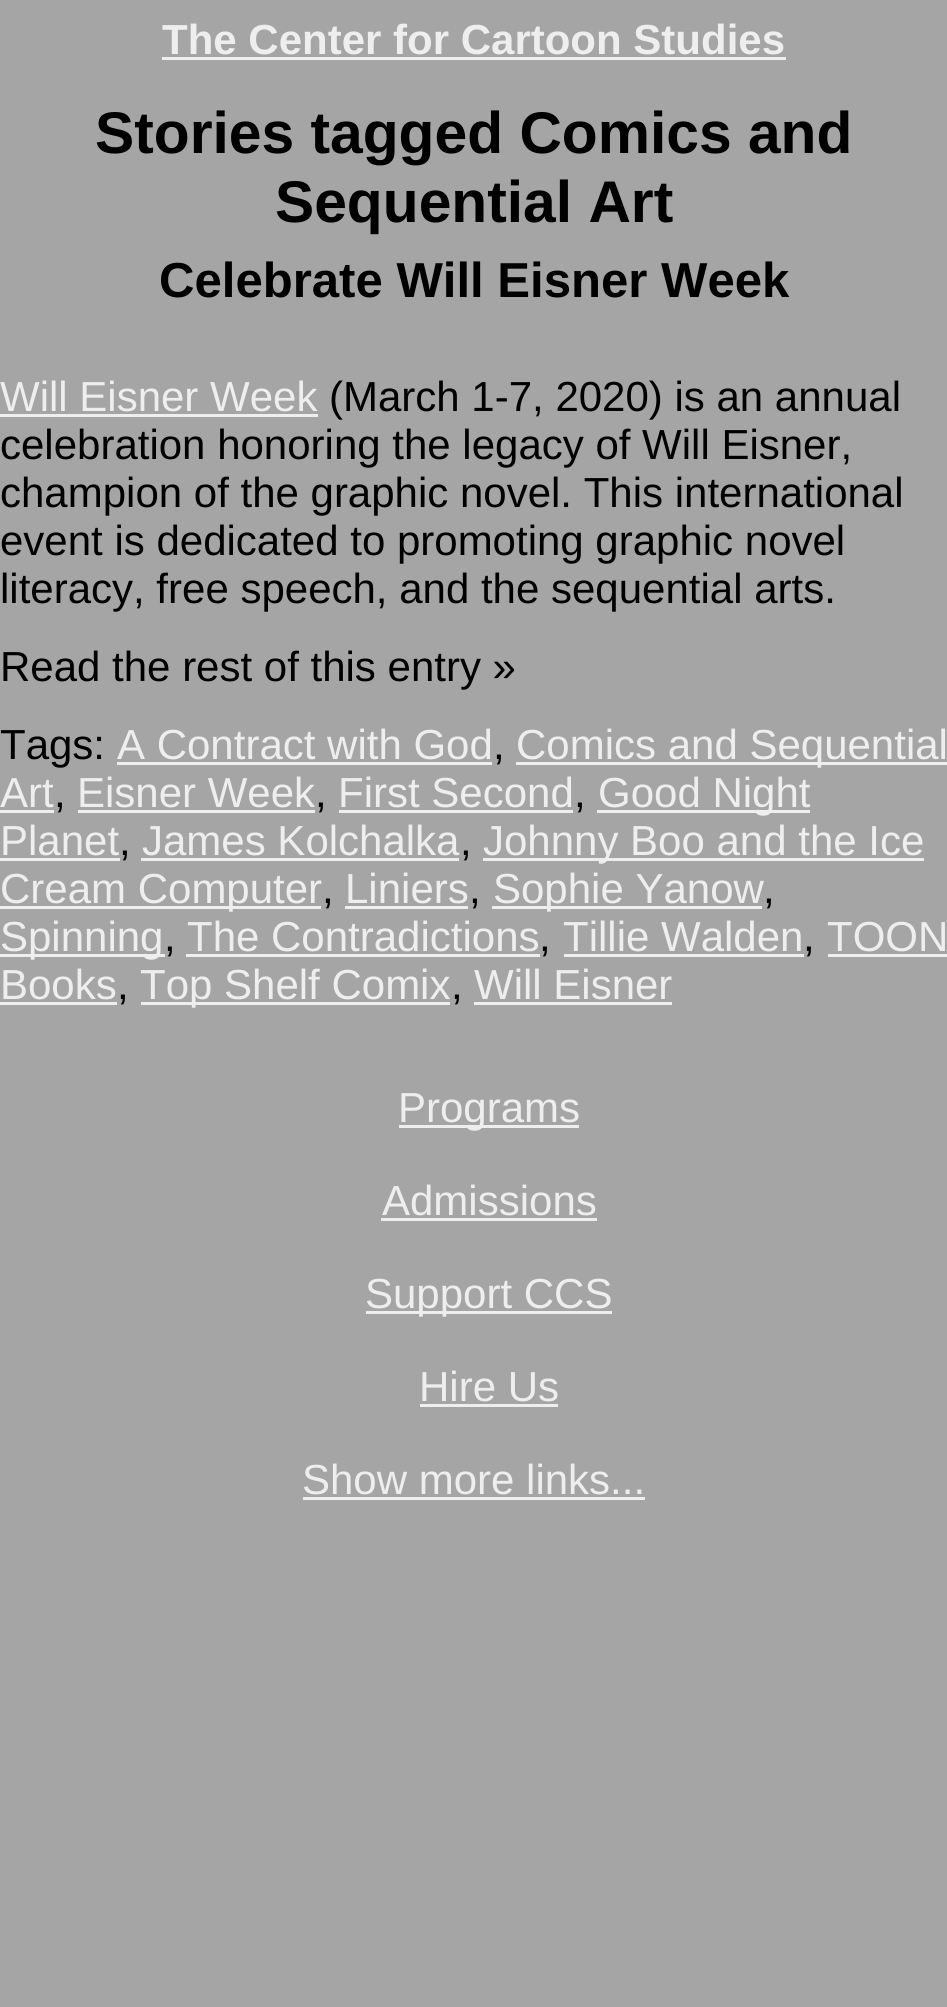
import math
import cairocffi as cairo

surface = cairo.ImageSurface(cairo.FORMAT_RGB24, 947, 2007)
cr = cairo.Context(surface)
options = cairo.FontOptions()
options.set_hint_metrics(cairo.HINT_METRICS_OFF)
options.set_hint_style(cairo.HINT_STYLE_NONE)
cr.set_font_options(options)
cr.set_miter_limit(4)


def use_color(code):
    cr.set_source_rgb(*(v / 255 for v in bytes.fromhex(code[-6:])))


use_color("#a5a5a5")
cr.paint()
cr.select_font_face("Liberation Sans", cairo.FONT_SLANT_NORMAL, cairo.FONT_WEIGHT_BOLD)
cr.set_font_size(42)
use_color("#eeeeee")
cr.move_to(162, 54)
cr.show_text("The Center for Cartoon Studies")
cr.rectangle(162, 57, 624, 3)
cr.fill()
cr.set_font_size(58.75)
use_color("#000000")
cr.move_to(95, 153)
cr.show_text("Stories tagged Comics and")
cr.move_to(275, 222)
cr.show_text("Sequential Art")
cr.set_font_size(49.1)
cr.move_to(159, 297)
cr.show_text("Celebrate Will Eisner Week")
cr.select_font_face("Liberation Sans")
cr.set_font_size(42)
use_color("#eeeeee")
cr.move_to(0, 411)
cr.show_text("Will Eisner Week")
cr.rectangle(0, 414, 318, 3)
cr.fill()
use_color("#000000")
cr.move_to(329, 411)
cr.show_text("(March 1-7, 2020) is an annual")
cr.move_to(0, 459)
cr.show_text("celebration honoring the legacy of Will Eisner,")
cr.move_to(0, 507)
cr.show_text("champion of the graphic novel. This international")
cr.move_to(0, 555)
cr.show_text("event is dedicated to promoting graphic novel")
cr.move_to(0, 603)
cr.show_text("literacy, free speech, and the sequential arts.")
cr.move_to(0, 681)
cr.show_text("Read the rest of this entry »")
cr.move_to(0, 759)
cr.show_text("Tags:")
use_color("#eeeeee")
cr.move_to(117, 759)
cr.show_text("A Contract with God")
cr.rectangle(117, 762, 375, 3)
cr.fill()
use_color("#000000")
cr.move_to(493, 759)
cr.show_text(",")
use_color("#eeeeee")
cr.rectangle(516, 762, 431, 3)
cr.fill()
cr.move_to(516, 759)
cr.show_text("Comics and Sequential")
cr.move_to(0, 807)
cr.show_text("Art")
cr.rectangle(0, 810, 54, 3)
cr.fill()
use_color("#000000")
cr.move_to(54, 807)
cr.show_text(",")
use_color("#eeeeee")
cr.move_to(77, 807)
cr.show_text("Eisner Week")
cr.rectangle(78, 810, 237, 3)
cr.fill()
use_color("#000000")
cr.move_to(315, 807)
cr.show_text(",")
use_color("#eeeeee")
cr.move_to(338, 807)
cr.show_text("First Second")
cr.rectangle(339, 810, 234, 3)
cr.fill()
use_color("#000000")
cr.move_to(574, 807)
cr.show_text(",")
use_color("#eeeeee")
cr.rectangle(597, 810, 213, 3)
cr.fill()
cr.move_to(598, 807)
cr.show_text("Good Night")
cr.move_to(0, 855)
cr.show_text("Planet")
cr.rectangle(0, 858, 120, 3)
cr.fill()
use_color("#000000")
cr.move_to(119, 855)
cr.show_text(",")
use_color("#eeeeee")
cr.move_to(142, 855)
cr.show_text("James Kolchalka")
cr.rectangle(141, 858, 318, 3)
cr.fill()
use_color("#000000")
cr.move_to(460, 855)
cr.show_text(",")
use_color("#eeeeee")
cr.rectangle(483, 858, 441, 3)
cr.fill()
cr.move_to(483, 855)
cr.show_text("Johnny Boo and the Ice")
cr.rectangle(0, 906, 321, 3)
cr.fill()
cr.move_to(0, 903)
cr.show_text("Cream Computer")
use_color("#000000")
cr.move_to(322, 903)
cr.show_text(",")
use_color("#eeeeee")
cr.move_to(345, 903)
cr.show_text("Liniers")
cr.rectangle(345, 906, 123, 3)
cr.fill()
use_color("#000000")
cr.move_to(469, 903)
cr.show_text(",")
use_color("#eeeeee")
cr.rectangle(492, 906, 270, 3)
cr.fill()
cr.move_to(493, 903)
cr.show_text("Sophie Yanow")
use_color("#000000")
cr.move_to(763, 903)
cr.show_text(",")
use_color("#eeeeee")
cr.rectangle(0, 954, 165, 3)
cr.fill()
cr.move_to(0, 951)
cr.show_text("Spinning")
use_color("#000000")
cr.move_to(164, 951)
cr.show_text(",")
use_color("#eeeeee")
cr.move_to(187, 951)
cr.show_text("The Contradictions")
cr.rectangle(186, 954, 354, 3)
cr.fill()
use_color("#000000")
cr.move_to(539, 951)
cr.show_text(",")
use_color("#eeeeee")
cr.move_to(563, 951)
cr.show_text("Tillie Walden")
cr.rectangle(564, 954, 240, 3)
cr.fill()
use_color("#000000")
cr.move_to(803, 951)
cr.show_text(",")
use_color("#eeeeee")
cr.move_to(827, 951)
cr.show_text("TOON")
cr.rectangle(828, 954, 119, 3)
cr.fill()
cr.move_to(0, 999)
cr.show_text("Books")
cr.rectangle(0, 1002, 117, 3)
cr.fill()
use_color("#000000")
cr.move_to(117, 999)
cr.show_text(",")
use_color("#eeeeee")
cr.rectangle(141, 1002, 309, 3)
cr.fill()
cr.move_to(140, 999)
cr.show_text("Top Shelf Comix")
use_color("#000000")
cr.move_to(451, 999)
cr.show_text(",")
use_color("#eeeeee")
cr.move_to(474, 999)
cr.show_text("Will Eisner")
cr.rectangle(474, 1002, 198, 3)
cr.fill()
cr.rectangle(399, 1125, 180, 3)
cr.fill()
cr.move_to(398, 1122)
cr.show_text("Programs")
cr.move_to(382, 1215)
cr.show_text("Admissions")
cr.rectangle(381, 1218, 216, 3)
cr.fill()
cr.rectangle(366, 1311, 246, 3)
cr.fill()
cr.move_to(365, 1308)
cr.show_text("Support CCS")
cr.move_to(419, 1401)
cr.show_text("Hire Us")
cr.rectangle(420, 1404, 138, 3)
cr.fill()
cr.move_to(302, 1494)
cr.show_text("Show more links...")
cr.rectangle(303, 1497, 342, 3)
cr.fill()
surface.write_to_png("result.png")
